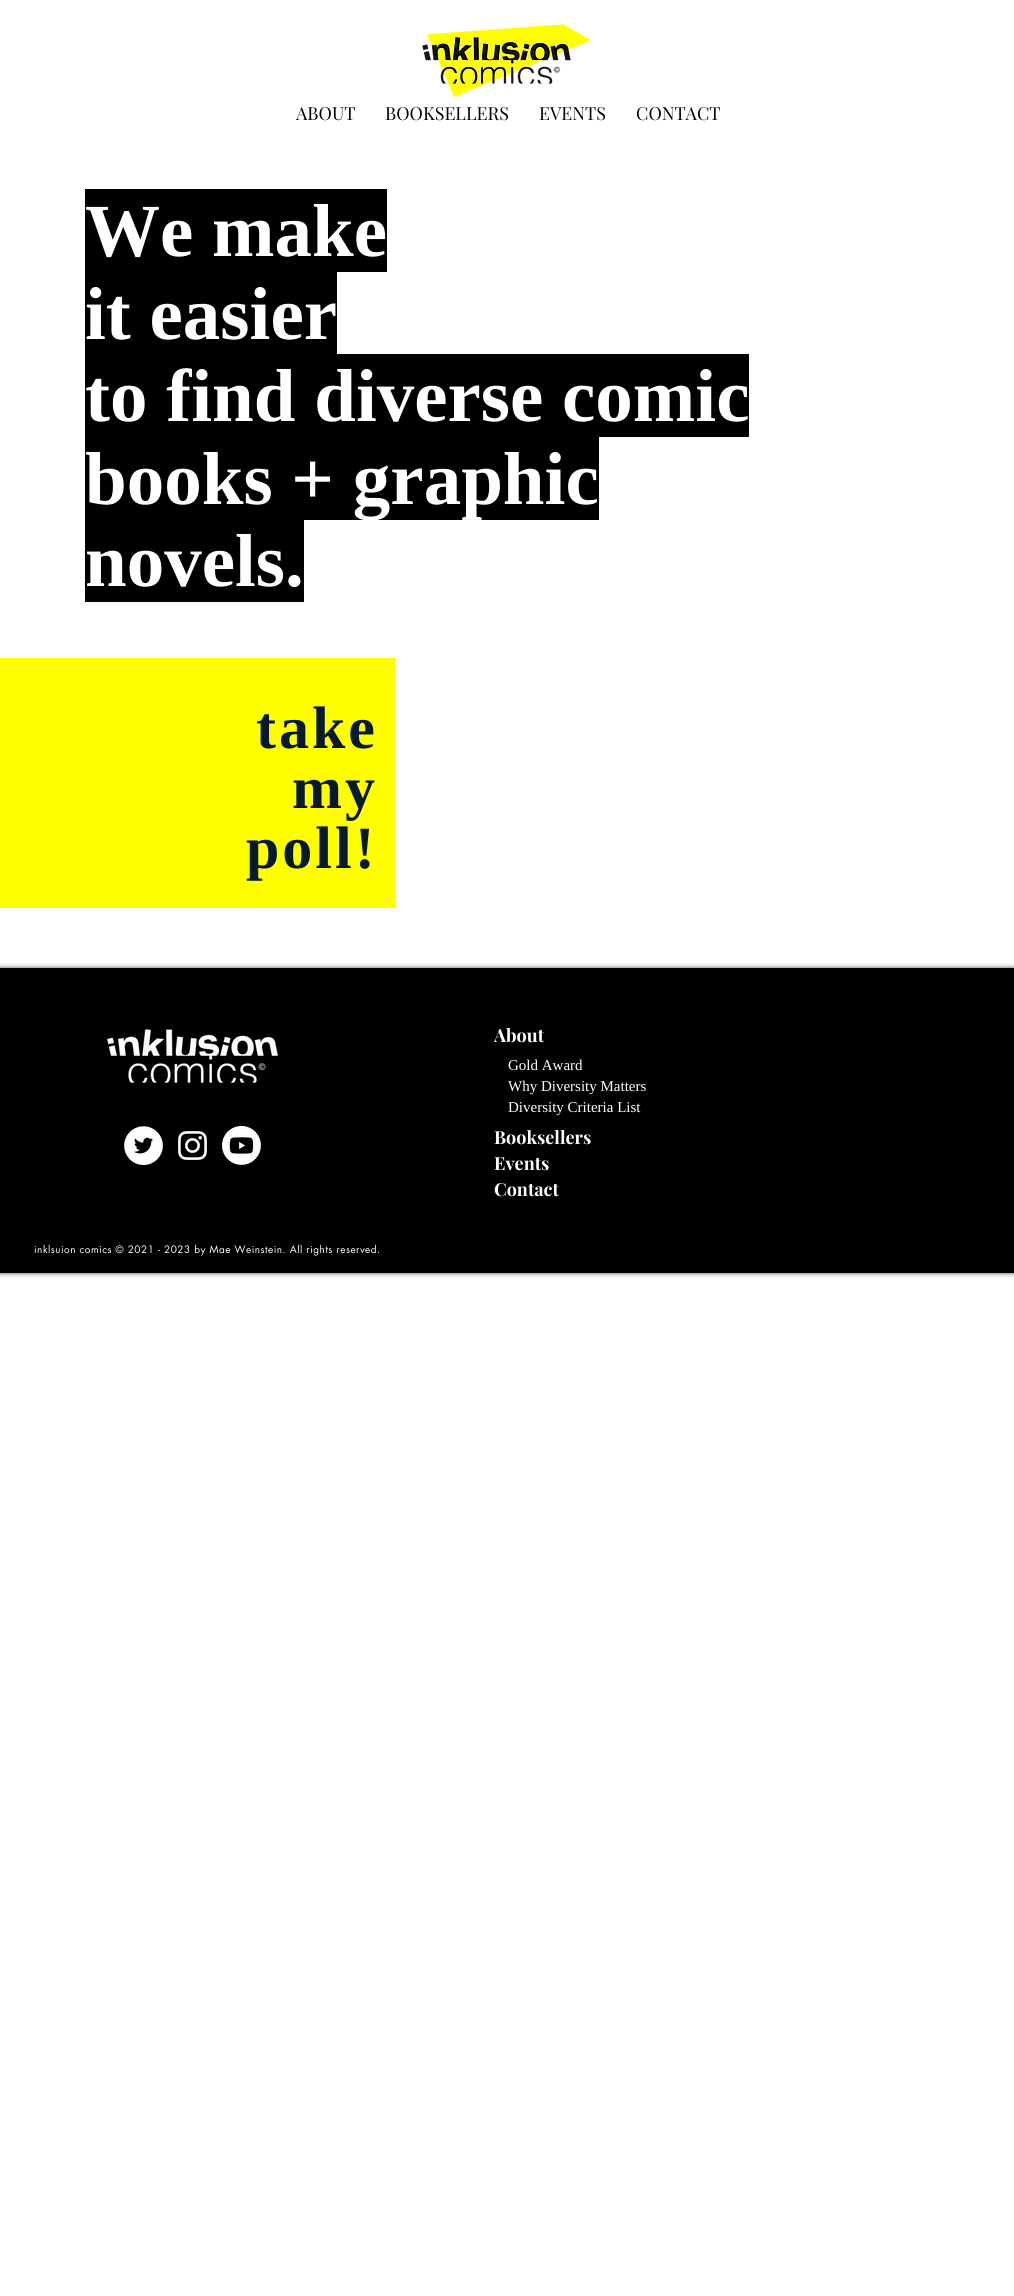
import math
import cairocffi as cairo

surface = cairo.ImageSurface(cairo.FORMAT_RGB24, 1014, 2296)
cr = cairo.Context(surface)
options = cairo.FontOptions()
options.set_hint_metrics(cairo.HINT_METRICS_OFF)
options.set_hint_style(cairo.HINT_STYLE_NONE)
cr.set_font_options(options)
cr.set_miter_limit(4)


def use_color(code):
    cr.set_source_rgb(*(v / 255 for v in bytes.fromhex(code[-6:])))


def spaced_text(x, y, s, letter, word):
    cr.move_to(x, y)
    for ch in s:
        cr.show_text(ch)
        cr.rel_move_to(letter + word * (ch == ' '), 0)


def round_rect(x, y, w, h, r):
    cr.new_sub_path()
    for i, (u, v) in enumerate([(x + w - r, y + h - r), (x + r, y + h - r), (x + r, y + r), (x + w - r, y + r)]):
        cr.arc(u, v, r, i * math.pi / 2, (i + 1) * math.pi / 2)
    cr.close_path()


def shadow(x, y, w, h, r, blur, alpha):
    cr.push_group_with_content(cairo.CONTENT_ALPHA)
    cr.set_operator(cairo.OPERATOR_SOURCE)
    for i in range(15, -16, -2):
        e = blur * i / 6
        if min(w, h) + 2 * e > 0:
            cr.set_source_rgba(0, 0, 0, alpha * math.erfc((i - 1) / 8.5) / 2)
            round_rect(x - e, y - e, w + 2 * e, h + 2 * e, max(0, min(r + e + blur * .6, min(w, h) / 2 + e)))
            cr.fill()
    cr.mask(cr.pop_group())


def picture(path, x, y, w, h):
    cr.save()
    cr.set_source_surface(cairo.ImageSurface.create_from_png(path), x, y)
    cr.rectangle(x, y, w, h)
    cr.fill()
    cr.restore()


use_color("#ffffff")
cr.paint()
picture("img1.png", 422, 24, 169, 73)
cr.select_font_face("Playfair Display")
cr.set_font_size(18)
use_color("#000000")
cr.move_to(296, 120)
cr.show_text("ABOUT")
cr.move_to(385, 120)
cr.show_text("BOOKSELLERS")
cr.move_to(539, 120)
cr.show_text("EVENTS")
cr.move_to(636, 120)
cr.show_text("CONTACT")
cr.rectangle(85, 189, 302, 83)
cr.fill()
cr.select_font_face("Liberation Serif", cairo.FONT_SLANT_NORMAL, cairo.FONT_WEIGHT_BOLD)
cr.set_font_size(75)
use_color("#ffffff")
cr.move_to(85, 256)
cr.show_text("We make")
use_color("#000000")
cr.rectangle(85, 272, 252, 82)
cr.fill()
use_color("#ffffff")
cr.move_to(85, 339)
cr.show_text("it easier")
use_color("#000000")
cr.rectangle(85, 354, 664, 83)
cr.fill()
use_color("#ffffff")
cr.move_to(85, 421)
cr.show_text("to find diverse comic")
use_color("#000000")
cr.rectangle(85, 437, 514, 83)
cr.fill()
cr.rectangle(85, 520, 219, 82)
cr.fill()
use_color("#ffffff")
cr.move_to(85, 504)
cr.show_text("books + graphic")
cr.move_to(85, 586)
cr.show_text("novels.")
use_color("#ffff00")
cr.rectangle(0, 658, 395, 250)
cr.fill()
cr.set_font_size(60)
use_color("#071a2d")
spaced_text(256, 748, "take", 3, 0)
spaced_text(292, 808, "my", 3, 0)
spaced_text(246, 868, "poll!", 3, 0)
use_color("#000000")
shadow(0, 968, 1014, 305, 0, 2.5, 0.7)
use_color("#000000")
cr.rectangle(0, 968, 1014, 305)
cr.fill()
picture("img2.png", 107, 1029, 171, 54)
cr.select_font_face("Playfair Display", cairo.FONT_SLANT_NORMAL, cairo.FONT_WEIGHT_BOLD)
cr.set_font_size(18)
use_color("#ffffff")
cr.move_to(494, 1042)
cr.show_text("About")
cr.move_to(494, 1144)
cr.show_text("Booksellers")
cr.move_to(494, 1170)
cr.show_text("Events")
cr.move_to(494, 1196)
cr.show_text("Contact")
cr.select_font_face("Liberation Serif")
cr.set_font_size(15)
cr.move_to(508, 1070)
cr.show_text("Gold Award")
cr.move_to(508, 1091)
cr.show_text("Why Diversity Matters")
cr.move_to(508, 1112)
cr.show_text("Diversity Criteria List")
picture("img3.png", 124, 1126, 39, 39)
picture("img4.png", 178, 1131, 29, 29)
picture("img5.png", 222, 1126, 39, 39)
cr.select_font_face("futura")
cr.set_font_size(10)
spaced_text(34, 1253, "inklsuion comics © 2021 - 2023 by Mae Weinstein. All rights reserved.", 0.5, 0)
surface.write_to_png("result.png")
